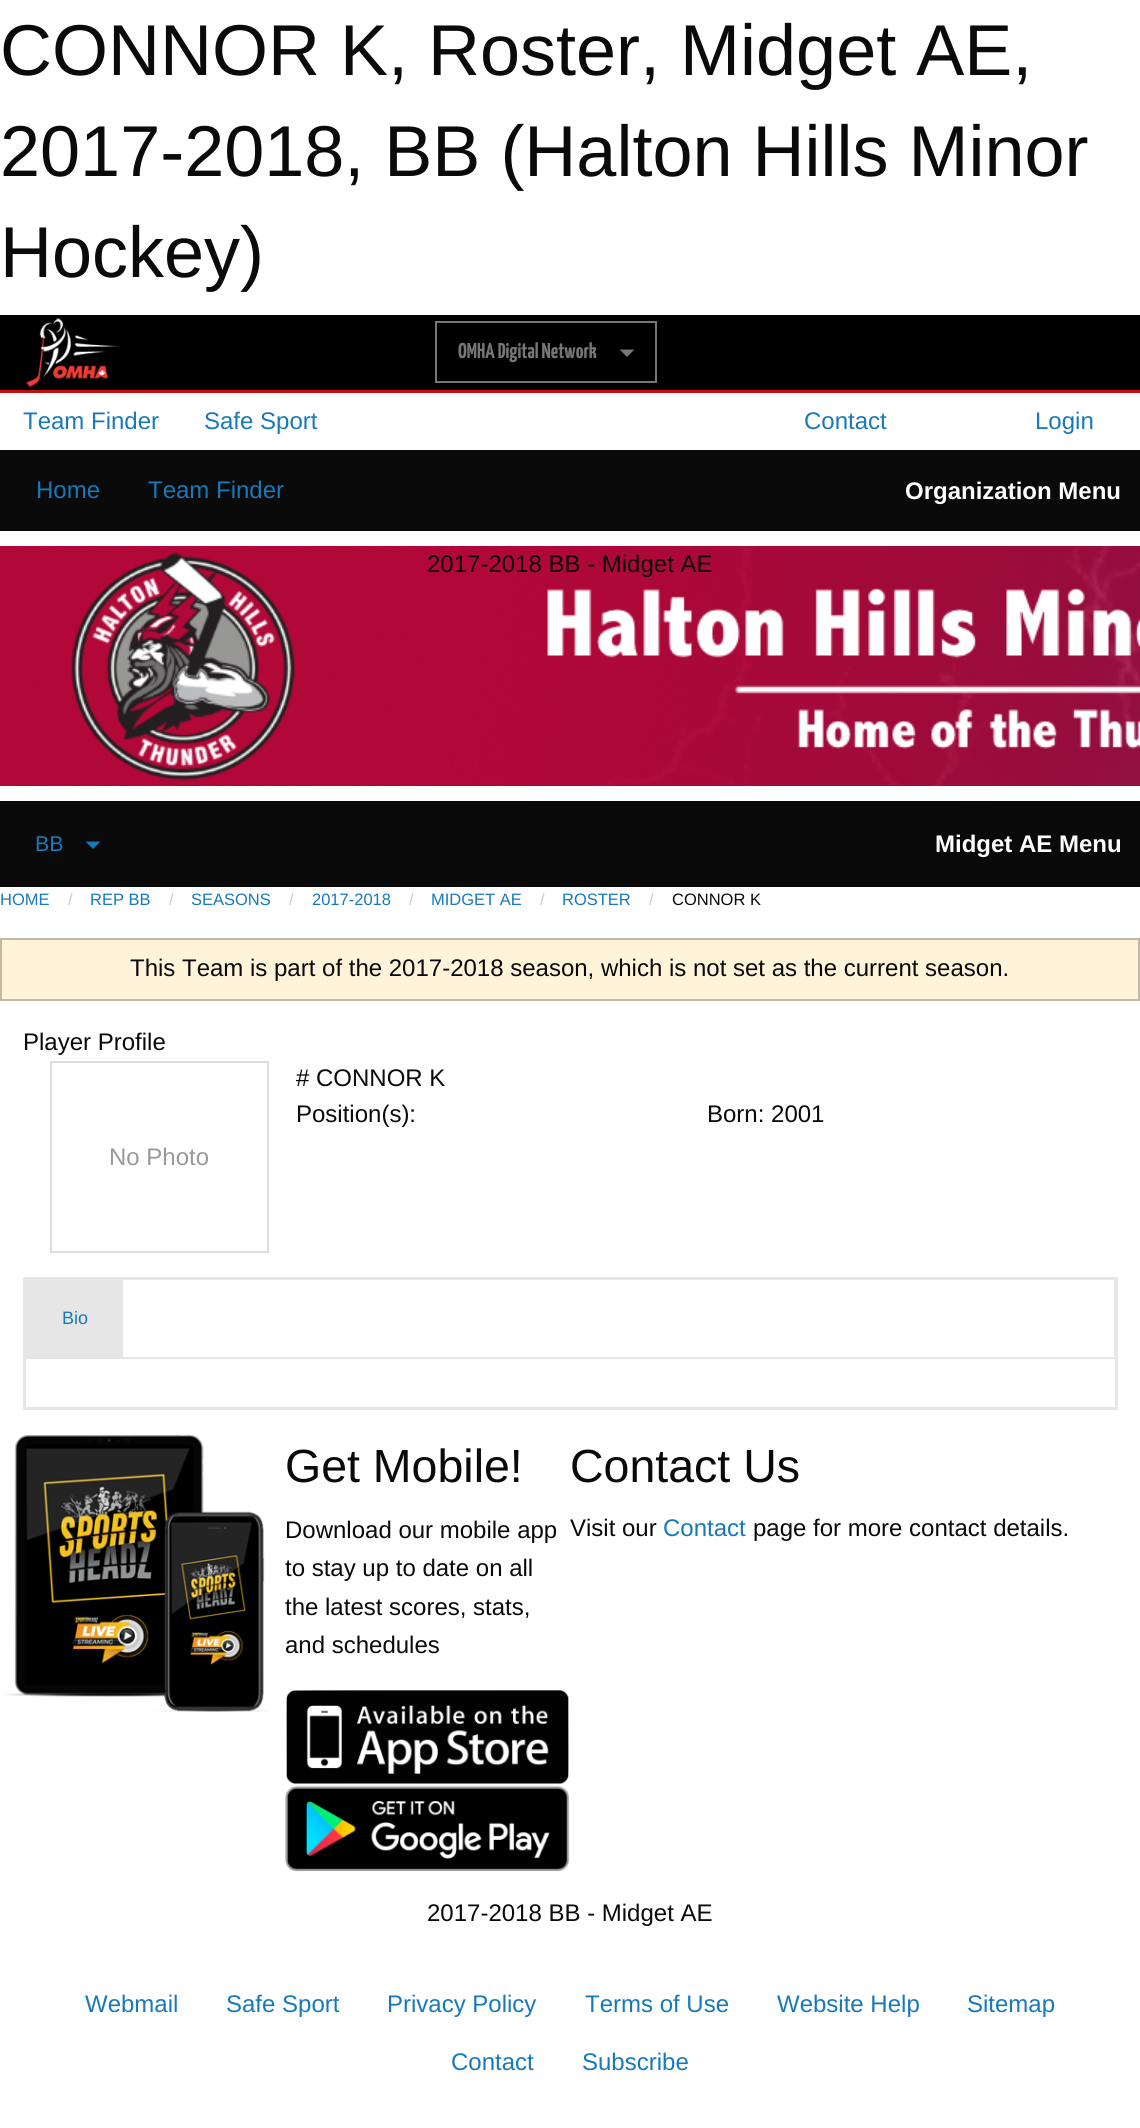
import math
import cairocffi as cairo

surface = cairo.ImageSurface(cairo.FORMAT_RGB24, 1140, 2128)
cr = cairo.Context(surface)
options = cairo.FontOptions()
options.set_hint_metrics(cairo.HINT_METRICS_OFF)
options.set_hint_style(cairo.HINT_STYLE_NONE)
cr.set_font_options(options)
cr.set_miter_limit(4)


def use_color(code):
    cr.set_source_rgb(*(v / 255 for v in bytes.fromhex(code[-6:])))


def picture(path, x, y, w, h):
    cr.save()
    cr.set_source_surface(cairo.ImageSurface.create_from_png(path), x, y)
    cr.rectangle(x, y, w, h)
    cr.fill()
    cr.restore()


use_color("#ffffff")
cr.paint()
cr.select_font_face("Liberation Sans")
cr.set_font_size(72)
use_color("#0a0a0a")
cr.move_to(0, 75)
cr.show_text("CONNOR K, Roster, Midget AE,")
cr.move_to(0, 176)
cr.show_text("2017-2018, BB (Halton Hills Minor")
cr.move_to(0, 277)
cr.show_text("Hockey)")
use_color("#000000")
cr.rectangle(0, 315, 1140, 75)
cr.fill()
use_color("#c60c0c")
cr.rectangle(0, 390, 1140, 3)
cr.fill()
picture("img1.png", 26, 318, 93, 69)
cr.rectangle(436, 322, 220, 60)
use_color("#767676")
cr.stroke()
cr.select_font_face("Yanone Kaffeesatz ExtraLight")
cr.set_font_size(21.5)
cr.move_to(458, 358)
cr.show_text("OMHA Digital Network")
cr.new_path()
cr.move_to(619.5, 349.5)
cr.line_to(634.5, 349.5)
cr.line_to(627, 357)
cr.close_path()
cr.fill()
cr.select_font_face("Liberation Sans")
cr.set_font_size(24)
use_color("#1779ba")
cr.move_to(23, 429)
cr.show_text("Team Finder")
cr.move_to(204, 429)
cr.show_text("Safe Sport")
cr.move_to(804, 429)
cr.show_text("Contact")
cr.move_to(1035, 429)
cr.show_text("Login")
use_color("#0a0a0a")
cr.rectangle(0, 450, 1140, 81)
cr.fill()
use_color("#1779ba")
cr.move_to(36, 498)
cr.show_text("Home")
cr.move_to(148, 498)
cr.show_text("Team Finder")
cr.select_font_face("Liberation Sans", cairo.FONT_SLANT_NORMAL, cairo.FONT_WEIGHT_BOLD)
use_color("#fefefe")
cr.move_to(905, 499)
cr.show_text("Organization Menu")
picture("img2.png", 0, 546, 1140, 240)
cr.select_font_face("Liberation Sans")
use_color("#0a0a0a")
cr.move_to(427, 572)
cr.show_text("2017-2018 BB - Midget AE")
cr.rectangle(0, 801, 1140, 86)
cr.fill()
cr.set_font_size(21.5)
use_color("#1779ba")
cr.move_to(35, 851)
cr.show_text("BB")
cr.new_path()
cr.move_to(85.5, 841.5)
cr.line_to(100.5, 841.5)
cr.line_to(93, 849)
cr.close_path()
cr.fill()
cr.select_font_face("Liberation Sans", cairo.FONT_SLANT_NORMAL, cairo.FONT_WEIGHT_BOLD)
cr.set_font_size(24)
use_color("#fefefe")
cr.move_to(935, 852)
cr.show_text("Midget AE Menu")
cr.select_font_face("Liberation Sans")
cr.set_font_size(16.5)
use_color("#1779ba")
cr.move_to(0, 905)
cr.show_text("HOME")
use_color("#cacaca")
cr.move_to(68, 905)
cr.show_text("/")
use_color("#1779ba")
cr.move_to(90, 905)
cr.show_text("REP BB")
use_color("#cacaca")
cr.move_to(169, 905)
cr.show_text("/")
use_color("#1779ba")
cr.move_to(191, 905)
cr.show_text("SEASONS")
use_color("#cacaca")
cr.move_to(289, 905)
cr.show_text("/")
use_color("#1779ba")
cr.move_to(312, 905)
cr.show_text("2017-2018")
use_color("#cacaca")
cr.move_to(409, 905)
cr.show_text("/")
use_color("#1779ba")
cr.move_to(431, 905)
cr.show_text("MIDGET AE")
use_color("#cacaca")
cr.move_to(540, 905)
cr.show_text("/")
use_color("#1779ba")
cr.move_to(562, 905)
cr.show_text("ROSTER")
use_color("#cacaca")
cr.move_to(649, 905)
cr.show_text("/")
use_color("#0a0a0a")
cr.move_to(672, 905)
cr.show_text("CONNOR K")
use_color("#fff3d9")
cr.rectangle(1, 939, 1138, 61)
cr.fill_preserve()
use_color("#c2b9a5")
cr.stroke()
cr.set_font_size(24)
use_color("#0a0a0a")
cr.move_to(130, 976)
cr.show_text("This Team is part of the 2017-2018 season, which is not set as the current season.")
cr.move_to(23, 1050)
cr.show_text("Player Profile")
cr.move_to(296, 1086)
cr.show_text("# CONNOR K")
cr.move_to(296, 1122)
cr.show_text("Position(s):")
cr.move_to(707, 1122)
cr.show_text("Born: 2001")
cr.rectangle(51, 1062, 217, 190)
use_color("#dddddd")
cr.stroke()
use_color("#999999")
cr.move_to(109, 1165)
cr.show_text("No Photo")
cr.rectangle(24, 1278, 1093, 131)
use_color("#e6e6e6")
cr.stroke()
cr.rectangle(25, 1279, 1090, 79)
cr.stroke()
cr.rectangle(26, 1280, 97, 77)
cr.fill()
cr.set_font_size(18)
use_color("#1779ba")
cr.move_to(62, 1324)
cr.show_text("Bio")
use_color("#e6e6e6")
cr.rectangle(1115, 1359, 1, 50)
cr.fill()
cr.rectangle(24, 1407, 1092, 1)
cr.fill()
cr.rectangle(25, 1359, 1, 50)
cr.fill()
picture("img3.png", 4, 1434, 265, 278)
cr.set_font_size(46.5)
use_color("#0a0a0a")
cr.move_to(285, 1482)
cr.show_text("Get Mobile!")
cr.set_font_size(24)
cr.move_to(285, 1538)
cr.show_text("Download our mobile app")
cr.move_to(285, 1576)
cr.show_text("to stay up to date on all")
cr.move_to(285, 1615)
cr.show_text("the latest scores, stats,")
cr.move_to(285, 1653)
cr.show_text("and schedules")
picture("img4.png", 286, 1690, 283, 95)
picture("img5.png", 285, 1786, 285, 86)
cr.set_font_size(46.5)
cr.move_to(570, 1482)
cr.show_text("Contact Us")
cr.set_font_size(24)
cr.move_to(570, 1536)
cr.show_text("Visit our")
use_color("#1779ba")
cr.move_to(663, 1536)
cr.show_text("Contact")
use_color("#0a0a0a")
cr.move_to(753, 1536)
cr.show_text("page for more contact details.")
cr.move_to(427, 1921)
cr.show_text("2017-2018 BB - Midget AE")
use_color("#1779ba")
cr.move_to(85, 2012)
cr.show_text("Webmail")
cr.move_to(226, 2012)
cr.show_text("Safe Sport")
cr.move_to(387, 2012)
cr.show_text("Privacy Policy")
cr.move_to(585, 2012)
cr.show_text("Terms of Use")
cr.move_to(777, 2012)
cr.show_text("Website Help")
cr.move_to(967, 2012)
cr.show_text("Sitemap")
cr.move_to(451, 2070)
cr.show_text("Contact")
cr.move_to(582, 2070)
cr.show_text("Subscribe")
surface.write_to_png("result.png")
